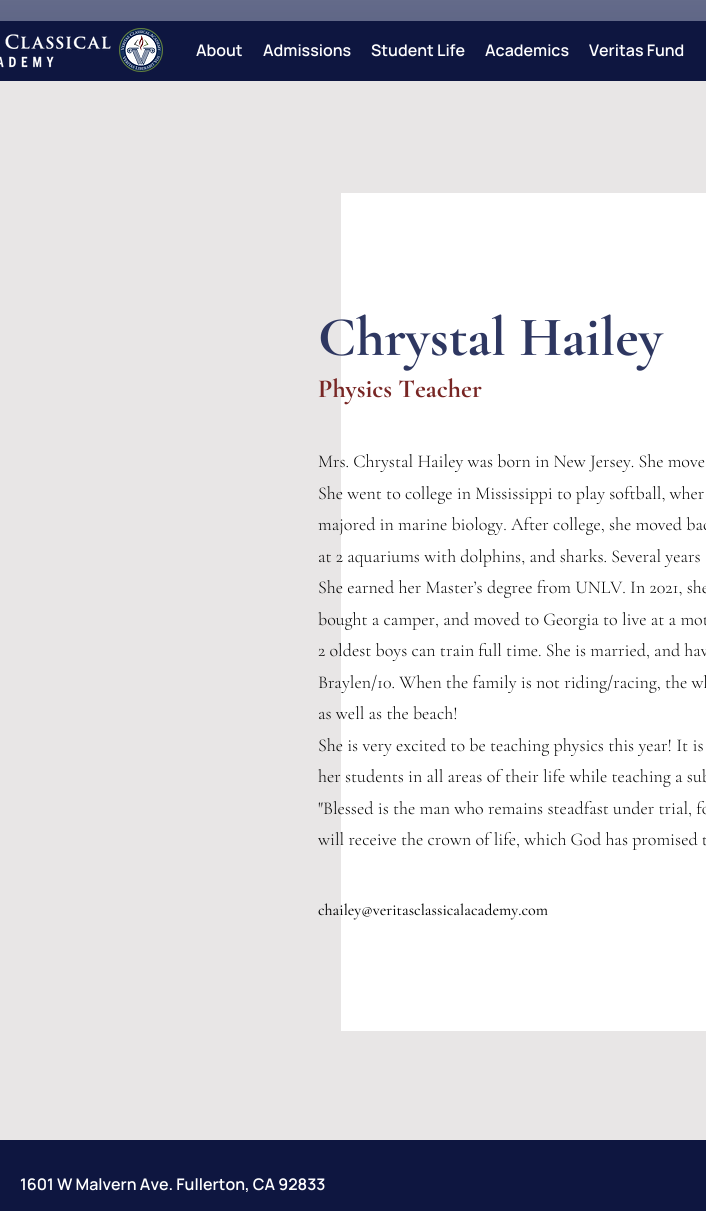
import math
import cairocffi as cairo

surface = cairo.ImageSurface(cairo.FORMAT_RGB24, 706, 1211)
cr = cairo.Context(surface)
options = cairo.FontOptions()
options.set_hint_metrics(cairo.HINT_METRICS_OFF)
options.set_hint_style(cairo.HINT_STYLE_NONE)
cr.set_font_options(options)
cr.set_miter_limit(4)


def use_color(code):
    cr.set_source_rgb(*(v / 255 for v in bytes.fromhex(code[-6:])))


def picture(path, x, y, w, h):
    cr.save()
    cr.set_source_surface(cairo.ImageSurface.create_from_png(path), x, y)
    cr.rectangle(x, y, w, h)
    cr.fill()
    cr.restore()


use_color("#e8e6e6")
cr.paint()
use_color("#2e3761")
cr.rectangle(0, 0, 706, 21)
cr.fill()
picture("img1.png", 0, 0, 706, 21)
use_color("#0e1640")
cr.rectangle(0, 21, 706, 60)
cr.fill()
picture("img2.png", 0, 34, 111, 34)
picture("img3.png", 119, 28, 44, 44)
cr.select_font_face("Manrope SemiBold")
cr.set_font_size(16)
use_color("#ffffff")
cr.move_to(196, 56)
cr.show_text("About")
cr.move_to(263, 56)
cr.show_text("Admissions")
cr.move_to(371, 56)
cr.show_text("Student Life")
cr.move_to(485, 56)
cr.show_text("Academics")
cr.move_to(589, 56)
cr.show_text("Veritas Fund")
cr.rectangle(341, 193, 365, 838)
cr.fill()
cr.select_font_face("Cormorant Garamond", cairo.FONT_SLANT_NORMAL, cairo.FONT_WEIGHT_BOLD)
cr.set_font_size(56)
use_color("#2e3761")
cr.move_to(318, 355)
cr.show_text("Chrystal Hailey")
cr.set_font_size(26)
use_color("#782624")
cr.move_to(318, 397)
cr.show_text("Physics Teacher")
cr.select_font_face("Cormorant Garamond Light")
cr.set_font_size(18)
use_color("#000000")
cr.move_to(318, 467)
cr.show_text("Mrs. Chrystal Hailey was born in New Jersey. She move")
cr.move_to(318, 499)
cr.show_text("She went to college in Mississippi to play softball, wher")
cr.move_to(318, 530)
cr.show_text("majored in marine biology. After college, she moved bac")
cr.move_to(318, 562)
cr.show_text("at 2 aquariums with dolphins, and sharks. Several years")
cr.move_to(318, 593)
cr.show_text("She earned her Master’s degree from UNLV. In 2021, she")
cr.move_to(318, 625)
cr.show_text("bought a camper, and moved to Georgia to live at a mot")
cr.move_to(318, 656)
cr.show_text("2 oldest boys can train full time. She is married, and hav")
cr.move_to(318, 688)
cr.show_text("Braylen/10. When the family is not riding/racing, the wh")
cr.move_to(318, 719)
cr.show_text("as well as the beach!")
cr.move_to(318, 751)
cr.show_text("She is very excited to be teaching physics this year! It is")
cr.move_to(318, 782)
cr.show_text("her students in all areas of their life while teaching a sub")
cr.move_to(318, 814)
cr.show_text("\"Blessed is the man who remains steadfast under trial, fo")
cr.move_to(318, 845)
cr.show_text("will receive the crown of life, which God has promised t")
cr.select_font_face("Cormorant Garamond Medium")
cr.set_font_size(16)
cr.move_to(318, 915)
cr.show_text("chailey@veritasclassicalacademy.com")
use_color("#0e1640")
cr.rectangle(0, 1140, 706, 71)
cr.fill()
cr.select_font_face("Manrope SemiBold")
use_color("#ffffff")
cr.move_to(20, 1190)
cr.show_text("1601 W Malvern Ave. Fullerton, CA 92833")
surface.write_to_png("result.png")
